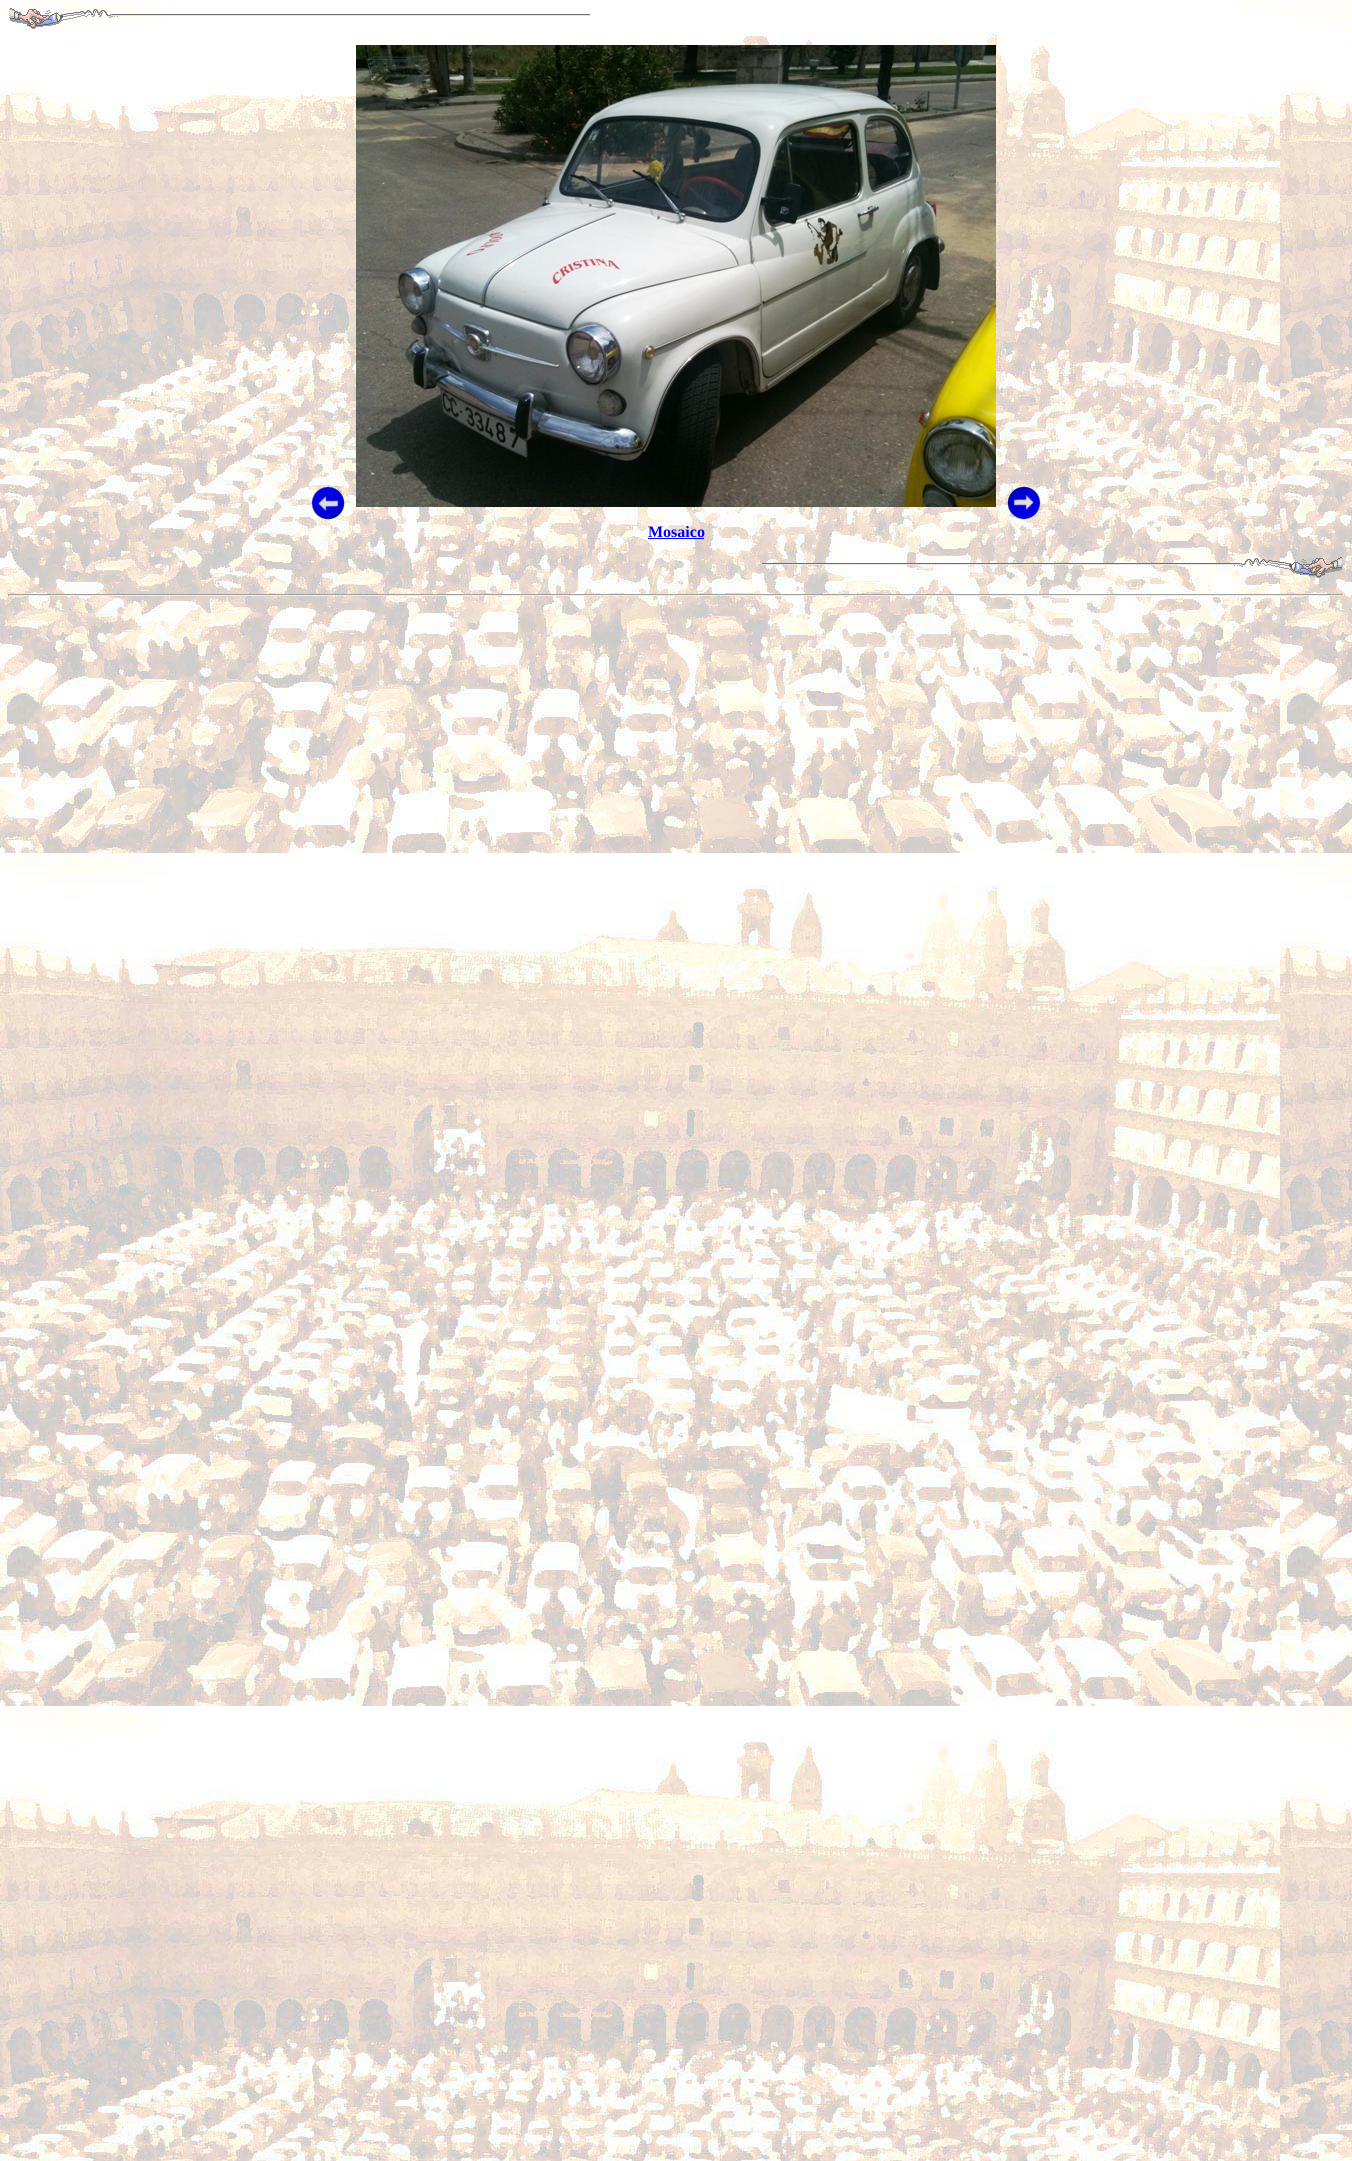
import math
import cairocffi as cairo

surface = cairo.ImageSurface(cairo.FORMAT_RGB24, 1352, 2161)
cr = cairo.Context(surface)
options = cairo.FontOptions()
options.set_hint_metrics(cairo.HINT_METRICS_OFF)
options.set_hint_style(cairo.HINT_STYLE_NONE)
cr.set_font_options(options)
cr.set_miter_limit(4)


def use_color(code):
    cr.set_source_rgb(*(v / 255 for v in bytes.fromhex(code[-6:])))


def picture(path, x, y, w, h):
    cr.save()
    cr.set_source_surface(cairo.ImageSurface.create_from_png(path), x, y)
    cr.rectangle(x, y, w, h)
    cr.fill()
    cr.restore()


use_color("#ffffff")
cr.paint()
picture("img1.png", 0, 0, 1352, 2161)
picture("img2.png", 9, 8, 581, 21)
picture("img3.png", 311, 486, 34, 34)
picture("img4.png", 356, 45, 640, 462)
picture("img5.png", 1007, 486, 34, 34)
cr.select_font_face("Liberation Serif", cairo.FONT_SLANT_NORMAL, cairo.FONT_WEIGHT_BOLD)
cr.set_font_size(16)
use_color("#0000ff")
cr.move_to(648, 537)
cr.show_text("Mosaico")
cr.rectangle(648, 538, 56, 1)
cr.fill()
picture("img6.png", 762, 557, 581, 21)
use_color("#9f9f9f")
cr.rectangle(8, 594, 1336, 1)
cr.fill()
use_color("#eeeeee")
cr.rectangle(1343, 594, 1, 2)
cr.fill()
cr.rectangle(8, 595, 1336, 1)
cr.fill()
use_color("#9f9f9f")
cr.rectangle(8, 594, 1, 2)
cr.fill()
surface.write_to_png("result.png")
